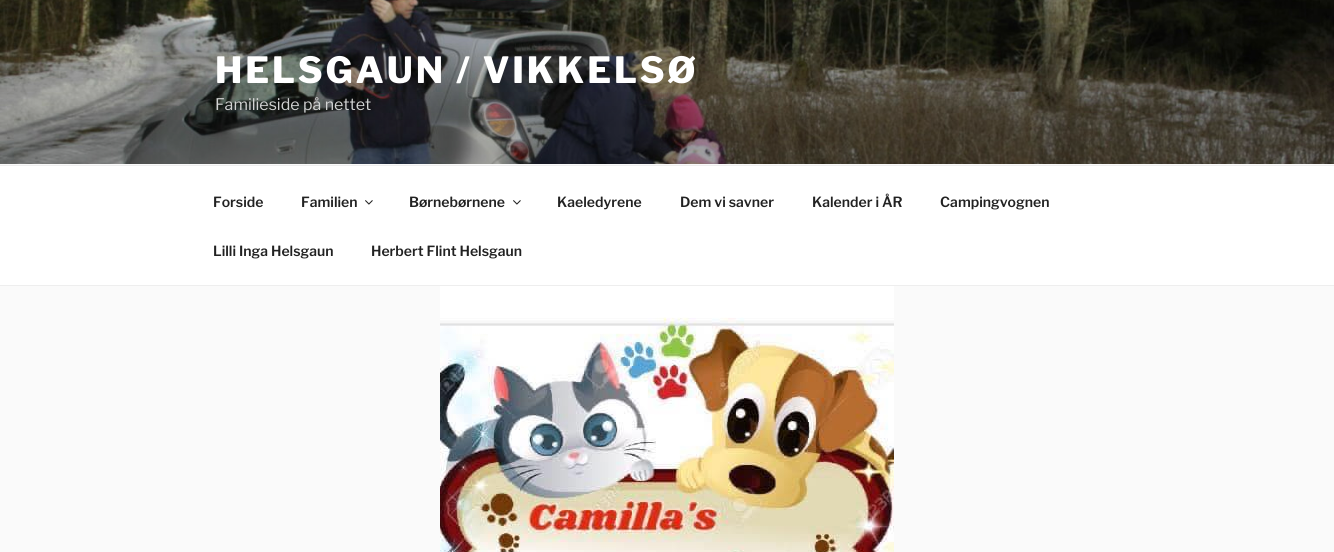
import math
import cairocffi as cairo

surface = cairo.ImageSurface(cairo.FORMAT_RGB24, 1334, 552)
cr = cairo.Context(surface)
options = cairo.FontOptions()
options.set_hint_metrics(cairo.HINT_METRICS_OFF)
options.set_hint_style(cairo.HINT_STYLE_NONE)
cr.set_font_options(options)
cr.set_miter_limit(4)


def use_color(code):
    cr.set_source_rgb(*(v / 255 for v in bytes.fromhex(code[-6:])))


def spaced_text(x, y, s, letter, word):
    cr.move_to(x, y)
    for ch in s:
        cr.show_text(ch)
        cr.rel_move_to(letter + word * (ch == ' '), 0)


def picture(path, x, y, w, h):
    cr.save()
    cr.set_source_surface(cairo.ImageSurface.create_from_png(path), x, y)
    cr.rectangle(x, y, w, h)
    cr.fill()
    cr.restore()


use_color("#fafafa")
cr.paint()
picture("img1.png", 0, 0, 1334, 164)
cr.select_font_face("Libre Franklin Thin")
cr.set_font_size(36)
use_color("#ffffff")
spaced_text(215, 83, "HELSGAUN / VIKKELSØ", 2.9, 0)
cr.select_font_face("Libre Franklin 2 Thin")
cr.set_font_size(16)
use_color("#d3d4d4")
cr.move_to(215, 110)
cr.show_text("Familieside på nettet")
use_color("#ffffff")
cr.rectangle(0, 166, 1334, 119)
cr.fill()
use_color("#eeeeee")
cr.rectangle(0, 165, 1334, 1)
cr.fill()
cr.rectangle(0, 285, 1334, 1)
cr.fill()
cr.select_font_face("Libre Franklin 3 Thin")
cr.set_font_size(14)
use_color("#222222")
cr.move_to(213, 207)
cr.show_text("Forside")
cr.move_to(301, 207)
cr.show_text("Familien")
picture("img2.png", 365, 200, 8, 5)
cr.move_to(409, 207)
cr.show_text("Børnebørnene")
picture("img2.png", 513, 200, 8, 5)
cr.move_to(557, 207)
cr.show_text("Kaeledyrene")
cr.move_to(680, 207)
cr.show_text("Dem vi savner")
cr.move_to(812, 207)
cr.show_text("Kalender i ÅR")
cr.move_to(940, 207)
cr.show_text("Campingvognen")
cr.move_to(213, 256)
cr.show_text("Lilli Inga Helsgaun")
cr.move_to(371, 256)
cr.show_text("Herbert Flint Helsgaun")
picture("img3.png", 440, 286, 454, 266)
surface.write_to_png("result.png")
